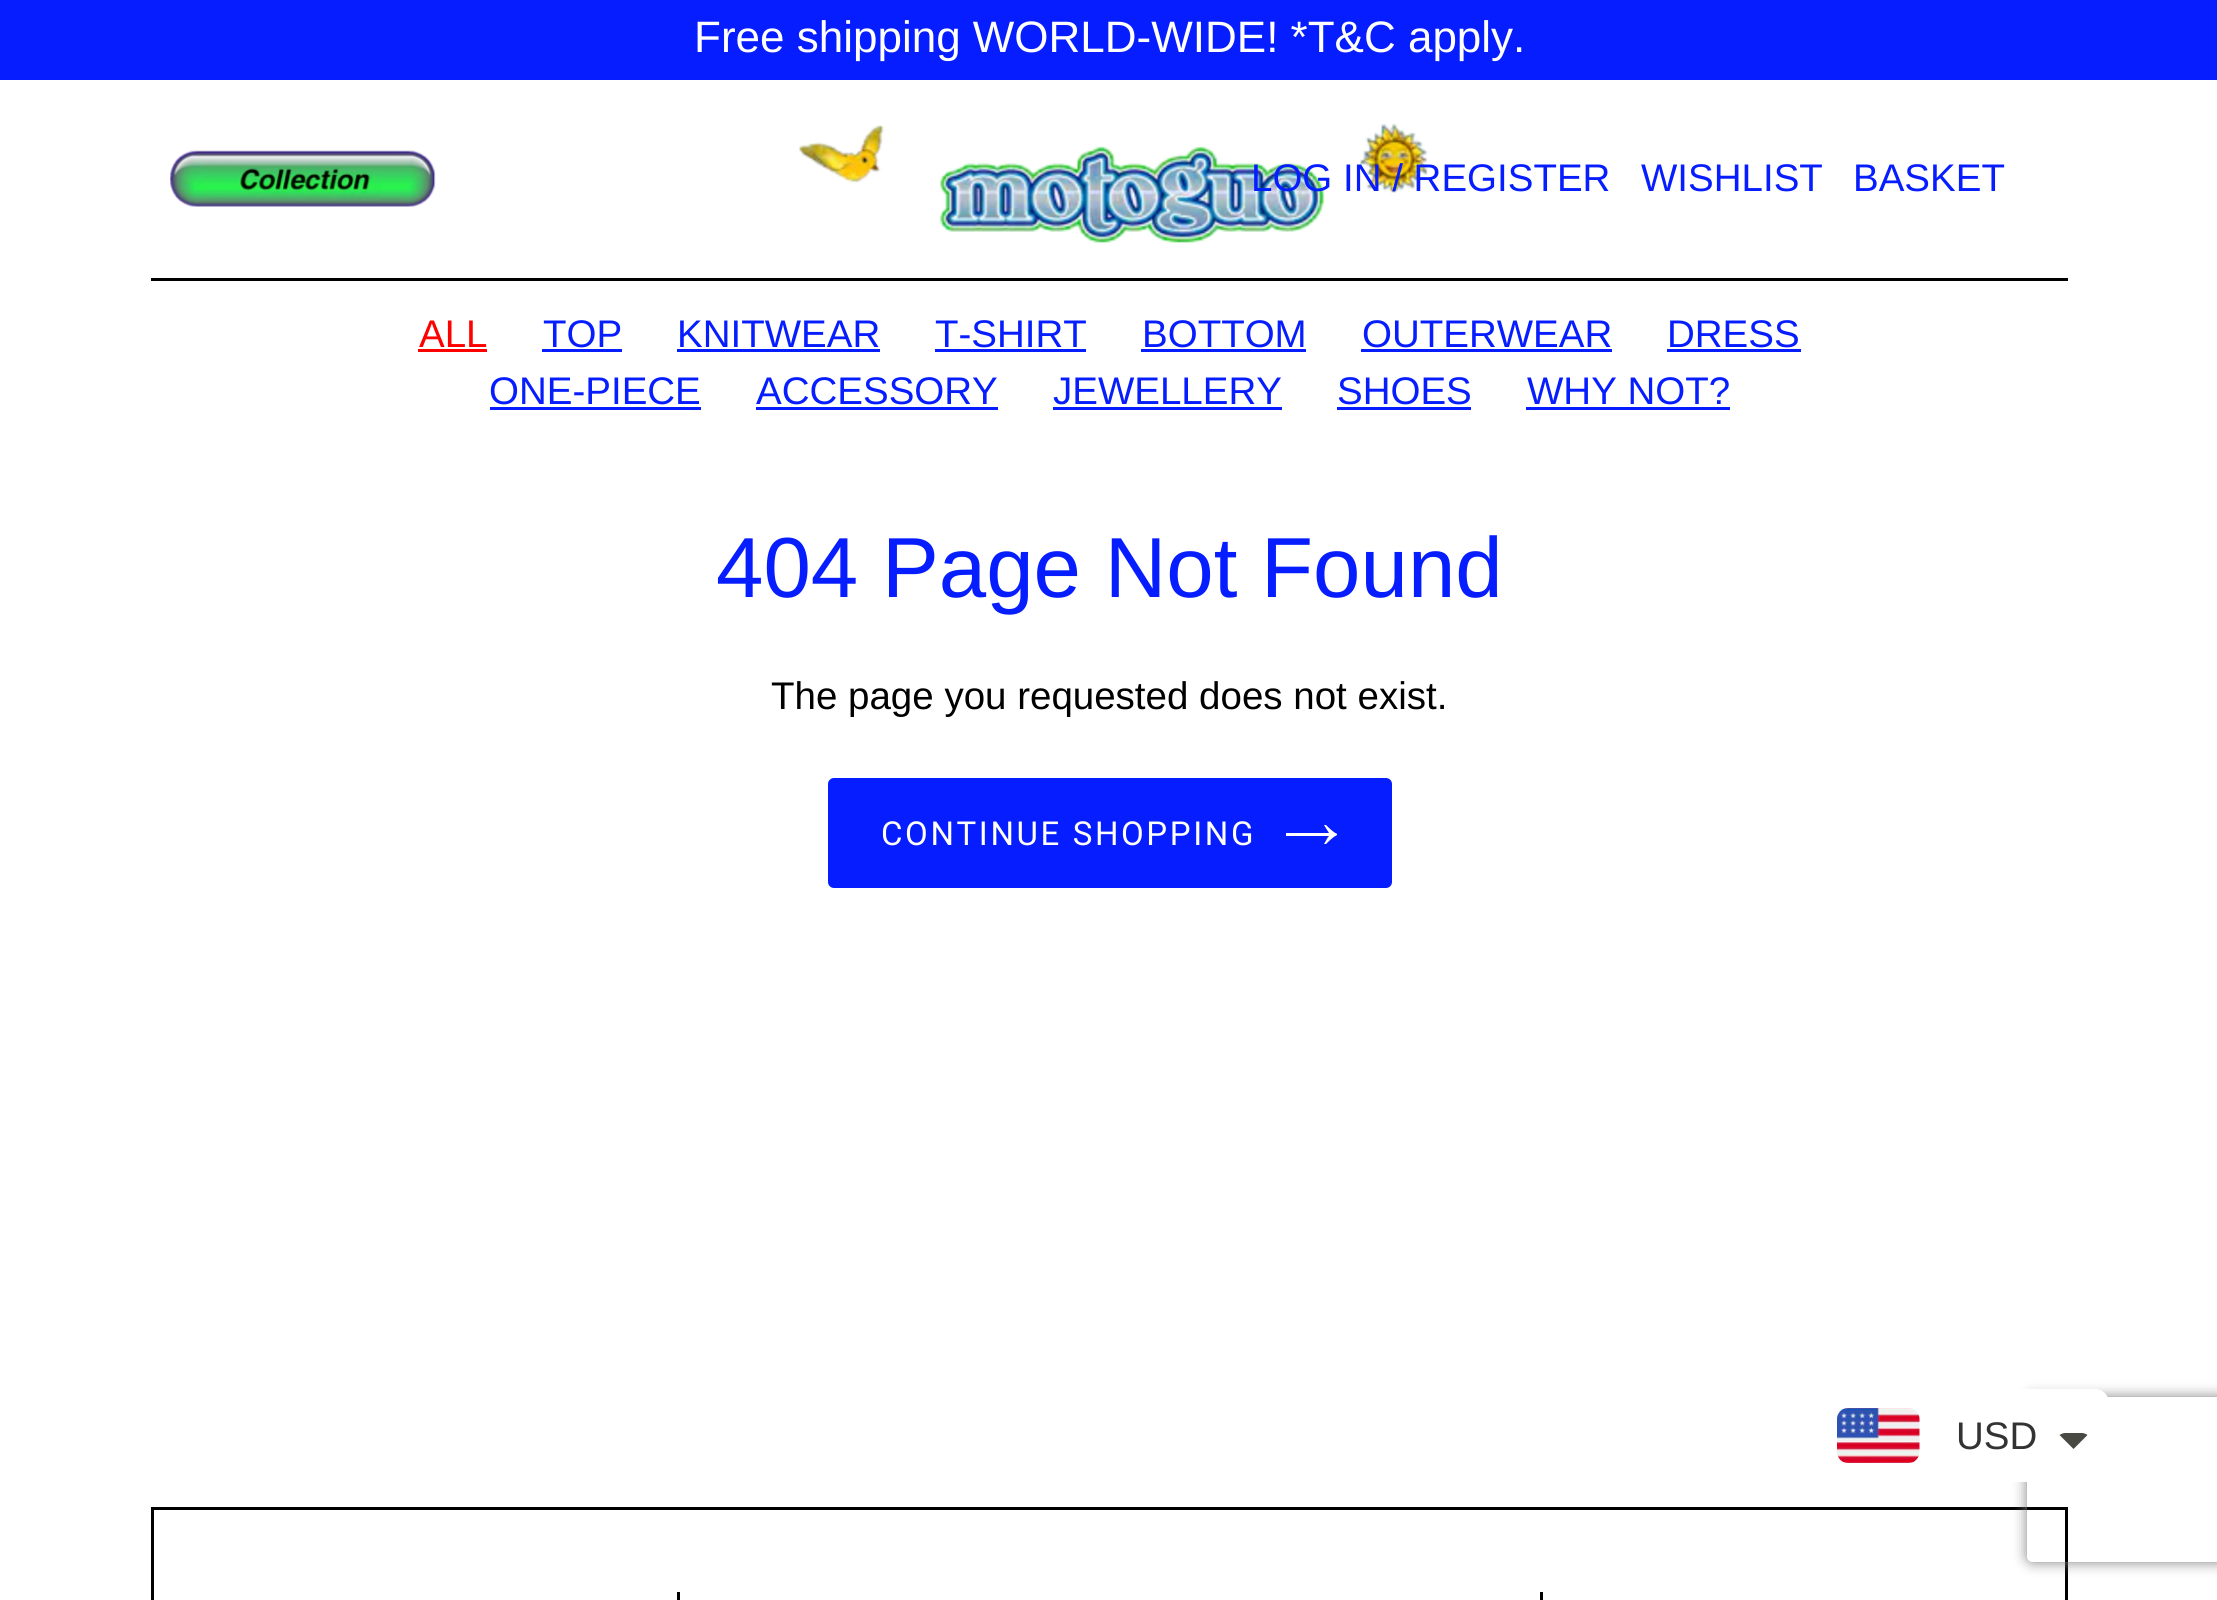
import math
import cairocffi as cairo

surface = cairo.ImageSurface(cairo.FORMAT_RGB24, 2217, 1600)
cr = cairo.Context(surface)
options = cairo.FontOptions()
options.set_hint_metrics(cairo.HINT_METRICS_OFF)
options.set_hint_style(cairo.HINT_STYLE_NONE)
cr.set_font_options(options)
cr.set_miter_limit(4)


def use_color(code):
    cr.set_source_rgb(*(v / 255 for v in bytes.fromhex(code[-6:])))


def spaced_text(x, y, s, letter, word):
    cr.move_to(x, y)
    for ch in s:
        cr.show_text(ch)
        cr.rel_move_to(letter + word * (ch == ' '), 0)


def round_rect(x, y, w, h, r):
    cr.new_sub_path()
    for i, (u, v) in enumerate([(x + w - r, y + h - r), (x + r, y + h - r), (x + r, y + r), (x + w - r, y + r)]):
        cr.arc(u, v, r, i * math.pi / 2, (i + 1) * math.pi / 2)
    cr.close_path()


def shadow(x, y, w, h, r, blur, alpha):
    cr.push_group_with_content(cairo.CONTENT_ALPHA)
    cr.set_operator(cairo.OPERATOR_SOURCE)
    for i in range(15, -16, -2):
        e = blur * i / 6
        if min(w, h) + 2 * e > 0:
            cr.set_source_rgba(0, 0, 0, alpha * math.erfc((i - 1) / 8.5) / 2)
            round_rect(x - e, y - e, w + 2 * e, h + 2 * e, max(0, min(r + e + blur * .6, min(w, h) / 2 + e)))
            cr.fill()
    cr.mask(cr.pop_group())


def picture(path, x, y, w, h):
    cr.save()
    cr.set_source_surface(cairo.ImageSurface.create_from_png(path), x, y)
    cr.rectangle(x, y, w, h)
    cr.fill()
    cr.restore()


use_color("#ffffff")
cr.paint()
use_color("#061eff")
cr.rectangle(0, 0, 2217, 80)
cr.fill()
cr.select_font_face("Liberation Sans")
cr.set_font_size(44)
use_color("#ffffff")
cr.move_to(694, 52)
cr.show_text("Free shipping WORLD-WIDE! *T&C apply.")
use_color("#000000")
cr.rectangle(151, 278, 1917, 3)
cr.fill()
picture("img1.png", 170, 150, 266, 57)
picture("img2.png", 799, 123, 629, 120)
cr.set_font_size(38.5)
use_color("#061eff")
cr.move_to(1251, 191)
cr.show_text("LOG IN / REGISTER")
cr.move_to(1641, 191)
cr.show_text("WISHLIST")
cr.move_to(1853, 191)
cr.show_text("BASKET")
use_color("#ff0000")
cr.move_to(419, 347)
cr.show_text("ALL")
cr.rectangle(418, 349, 69, 3)
cr.fill()
use_color("#061eff")
cr.move_to(543, 347)
cr.show_text("TOP")
cr.rectangle(542, 349, 80, 3)
cr.fill()
cr.move_to(677, 347)
cr.show_text("KNITWEAR")
cr.rectangle(677, 349, 203, 3)
cr.fill()
cr.move_to(935, 347)
cr.show_text("T-SHIRT")
cr.rectangle(935, 349, 151, 3)
cr.fill()
cr.move_to(1142, 347)
cr.show_text("BOTTOM")
cr.rectangle(1141, 349, 165, 3)
cr.fill()
cr.move_to(1362, 347)
cr.show_text("OUTERWEAR")
cr.rectangle(1361, 349, 251, 3)
cr.fill()
cr.move_to(1667, 347)
cr.show_text("DRESS")
cr.rectangle(1667, 349, 134, 3)
cr.fill()
cr.move_to(489, 404)
cr.show_text("ONE-PIECE")
cr.rectangle(490, 407, 211, 3)
cr.fill()
cr.move_to(756, 404)
cr.show_text("ACCESSORY")
cr.rectangle(756, 407, 242, 3)
cr.fill()
cr.move_to(1053, 404)
cr.show_text("JEWELLERY")
cr.rectangle(1053, 407, 229, 3)
cr.fill()
cr.move_to(1337, 404)
cr.show_text("SHOES")
cr.rectangle(1337, 407, 134, 3)
cr.fill()
cr.move_to(1527, 404)
cr.show_text("WHY NOT?")
cr.rectangle(1526, 407, 204, 3)
cr.fill()
cr.set_font_size(85.25)
cr.move_to(716, 597)
cr.show_text("404 Page Not Found")
cr.set_font_size(38.5)
use_color("#000000")
cr.move_to(771, 709)
cr.show_text("The page you requested does not exist.")
use_color("#061eff")
round_rect(828, 778, 564, 110, 6)
cr.fill()
cr.select_font_face("Roboto")
cr.set_font_size(33)
use_color("#ffffff")
spaced_text(881, 845, "CONTINUE SHOPPING", 2.6, 0)
cr.set_fill_rule(cairo.FILL_RULE_EVEN_ODD)
cr.new_path()
cr.move_to(1326, 825)
cr.curve_to(1329, 828, 1333, 832, 1337, 834)
cr.line_to(1337, 835)
cr.curve_to(1333, 837, 1329, 841, 1326, 844)
cr.line_to(1324, 844)
cr.curve_to(1326, 841, 1327, 838, 1329, 836)
cr.line_to(1286, 836)
cr.line_to(1286, 833)
cr.line_to(1329, 833)
cr.line_to(1324, 825)
cr.close_path()
cr.fill()
cr.rectangle(152.5, 1508.5, 1914, 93)
use_color("#000000")
cr.set_line_width(3)
cr.stroke()
cr.rectangle(677, 1592, 3, 8)
cr.fill()
cr.rectangle(1540, 1592, 3, 8)
cr.fill()
cr.save()
cr.new_path()
cr.move_to(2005, 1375)
cr.line_to(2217, 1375)
cr.line_to(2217, 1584)
cr.line_to(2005, 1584)
cr.close_path()
cr.move_to(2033, 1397)
cr.line_to(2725, 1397)
cr.curve_to(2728.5, 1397, 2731, 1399.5, 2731, 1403)
cr.line_to(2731, 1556)
cr.curve_to(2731, 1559.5, 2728.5, 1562, 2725, 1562)
cr.line_to(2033, 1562)
cr.curve_to(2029.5, 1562, 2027, 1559.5, 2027, 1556)
cr.line_to(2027, 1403)
cr.curve_to(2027, 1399.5, 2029.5, 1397, 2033, 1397)
cr.close_path()
cr.clip()
use_color("#808080")
shadow(2027, 1397, 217, 165, 6, 7, 1)
cr.restore()
use_color("#ffffff")
round_rect(1818, 1389, 291, 93, 14)
cr.fill()
picture("img3.png", 1837, 1408, 83, 55)
cr.select_font_face("Liberation Sans")
cr.set_font_size(38.5)
use_color("#333333")
cr.move_to(1956, 1449)
cr.show_text("USD")
use_color("#474942")
cr.set_fill_rule(cairo.FILL_RULE_WINDING)
cr.new_path()
cr.move_to(2065, 1433)
cr.line_to(2082, 1433)
cr.curve_to(2084, 1433, 2086, 1434, 2087.5, 1435)
cr.line_to(2073.5, 1449)
cr.line_to(2059.5, 1435)
cr.curve_to(2061, 1434, 2063, 1433, 2065, 1433)
cr.close_path()
cr.fill()
surface.write_to_png("result.png")
